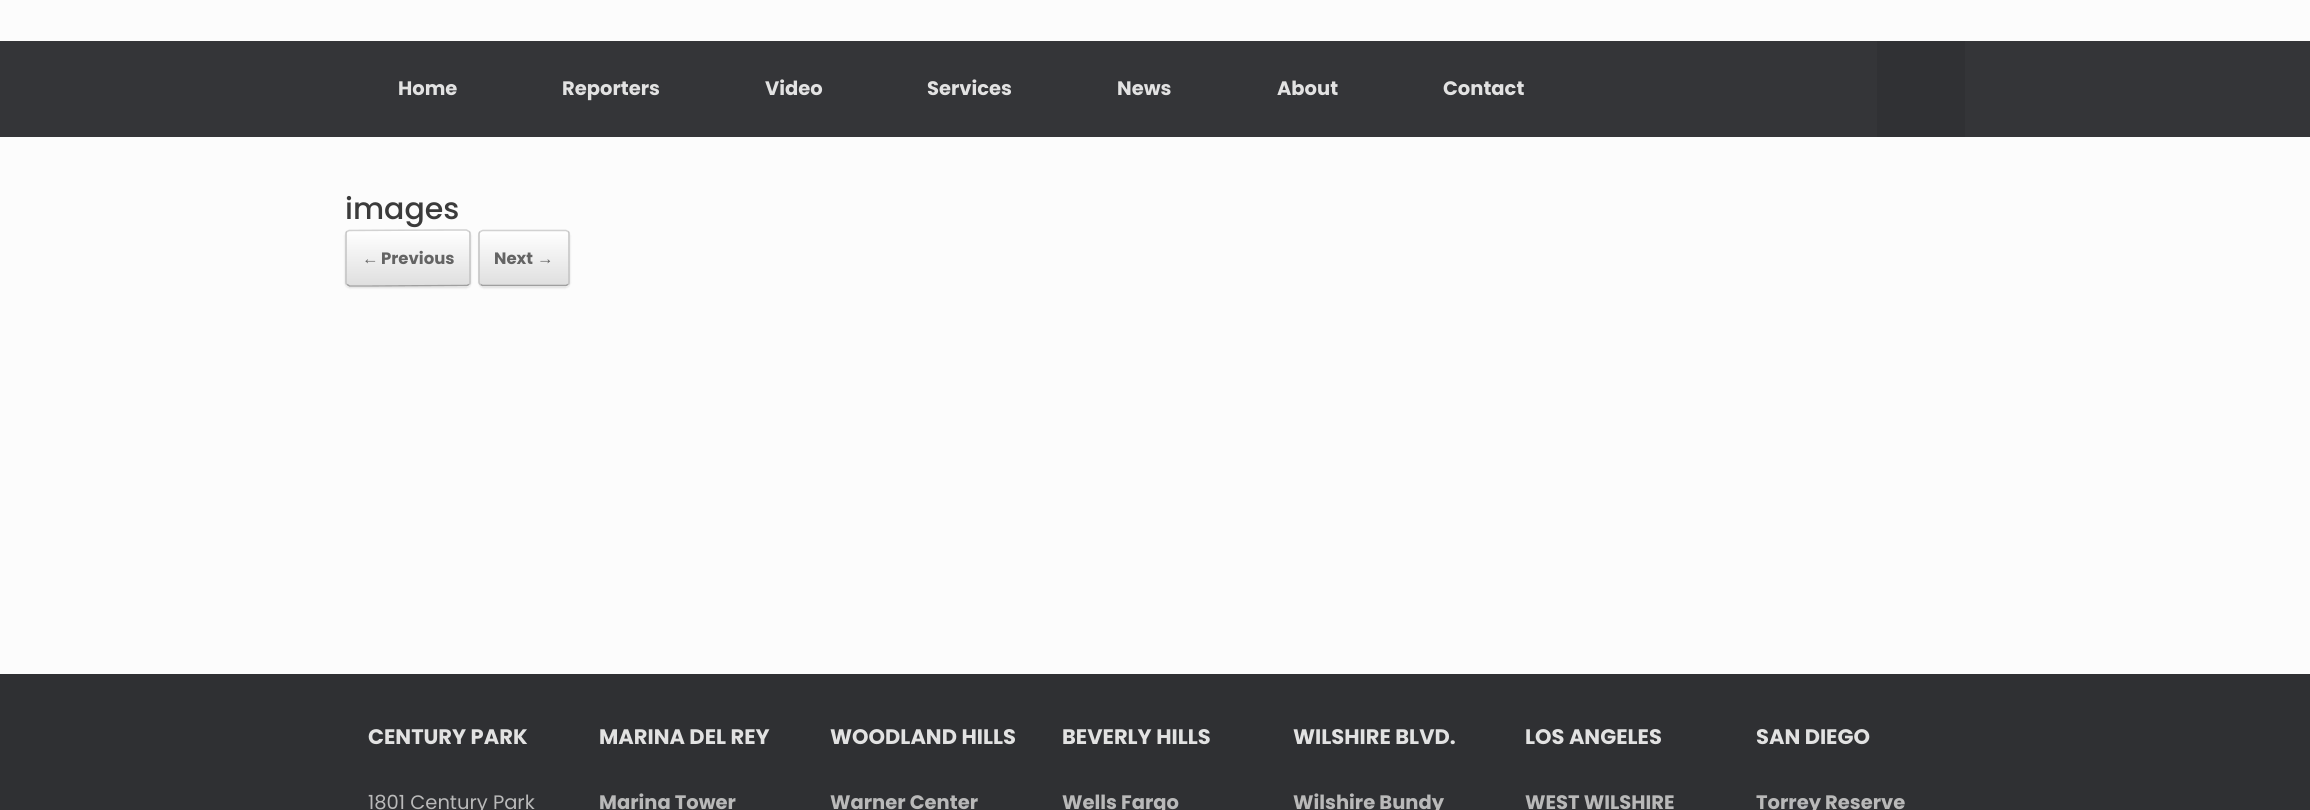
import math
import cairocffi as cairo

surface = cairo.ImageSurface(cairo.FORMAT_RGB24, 2310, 810)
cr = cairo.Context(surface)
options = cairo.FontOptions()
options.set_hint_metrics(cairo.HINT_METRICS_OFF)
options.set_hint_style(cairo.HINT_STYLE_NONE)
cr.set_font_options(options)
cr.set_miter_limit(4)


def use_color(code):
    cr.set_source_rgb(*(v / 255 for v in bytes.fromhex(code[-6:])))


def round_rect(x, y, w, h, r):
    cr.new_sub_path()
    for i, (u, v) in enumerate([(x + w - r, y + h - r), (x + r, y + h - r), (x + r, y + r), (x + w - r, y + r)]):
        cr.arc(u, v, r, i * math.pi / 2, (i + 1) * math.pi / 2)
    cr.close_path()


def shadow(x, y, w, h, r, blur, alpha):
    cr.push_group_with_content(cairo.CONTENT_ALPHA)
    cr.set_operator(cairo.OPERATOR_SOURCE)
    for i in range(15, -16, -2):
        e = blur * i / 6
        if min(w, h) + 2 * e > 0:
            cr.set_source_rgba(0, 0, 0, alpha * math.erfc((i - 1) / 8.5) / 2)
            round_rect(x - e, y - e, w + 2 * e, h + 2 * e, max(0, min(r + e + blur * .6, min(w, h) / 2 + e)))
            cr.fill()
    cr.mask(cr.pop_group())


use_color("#2f3033")
cr.paint()
use_color("#fcfcfc")
cr.rectangle(0, 0, 2310, 41)
cr.fill()
use_color("#343538")
cr.rectangle(0, 41, 2310, 96)
cr.fill()
cr.select_font_face("Poppins", cairo.FONT_SLANT_NORMAL, cairo.FONT_WEIGHT_BOLD)
cr.set_font_size(19.5)
use_color("#e2e2e2")
cr.move_to(398, 95)
cr.show_text("Home")
cr.move_to(562, 95)
cr.show_text("Reporters")
cr.move_to(765, 95)
cr.show_text("Video")
cr.move_to(927, 95)
cr.show_text("Services")
cr.move_to(1117, 95)
cr.show_text("News")
cr.move_to(1277, 95)
cr.show_text("About")
cr.move_to(1443, 95)
cr.show_text("Contact")
use_color("#303134")
cr.rectangle(1877, 41, 88, 96)
cr.fill()
use_color("#fcfcfc")
cr.rectangle(0, 137, 2310, 537)
cr.fill()
cr.select_font_face("Poppins Medium")
cr.set_font_size(30)
use_color("#3b3b3b")
cr.move_to(345, 219)
cr.show_text("images")
use_color("#000000")
shadow(345, 231, 126, 57, 5, 1, 0.12)
cr.save()
round_rect(345, 230, 126, 57, 5)
cr.clip()
gradient = cairo.LinearGradient(347, 285, 347, 231)
gradient.add_color_stop_rgba(0, 0.875, 0.875, 0.875, 1)
gradient.add_color_stop_rgba(1, 1, 1, 1, 1)
cr.set_source(gradient)
cr.rectangle(345, 231, 126, 54)
cr.fill()
gradient = cairo.LinearGradient(347, 339, 347, 285)
gradient.add_color_stop_rgba(0, 0.875, 0.875, 0.875, 1)
gradient.add_color_stop_rgba(1, 1, 1, 1, 1)
cr.set_source(gradient)
cr.rectangle(345, 285, 126, 2)
cr.fill()
cr.restore()
cr.new_path()
cr.move_to(347, 231.5)
cr.line_to(349, 230.5)
cr.line_to(447, 230)
cr.line_to(466.5, 230)
cr.line_to(469, 231.5)
use_color("#d2d2d2")
cr.set_line_width(1.5)
cr.stroke()
cr.new_path()
cr.move_to(469, 231.5)
cr.curve_to(470, 232, 470, 233, 470, 234)
cr.line_to(470, 282)
cr.curve_to(470, 283, 470, 284, 469, 284.5)
use_color("#c3c3c3")
cr.stroke()
cr.new_path()
cr.move_to(469, 284.5)
cr.line_to(467, 285.5)
cr.line_to(369, 286)
cr.line_to(349.5, 286)
cr.line_to(347, 284.5)
use_color("#9f9f9f")
cr.stroke()
cr.new_path()
cr.move_to(347, 284.5)
cr.curve_to(346, 284, 346, 283, 346, 282)
cr.line_to(346, 234)
cr.curve_to(346, 233, 346, 232, 347, 231.5)
use_color("#c3c3c3")
cr.stroke()
cr.select_font_face("Liberation Sans", cairo.FONT_SLANT_NORMAL, cairo.FONT_WEIGHT_BOLD)
cr.set_font_size(16.5)
use_color("#646464")
cr.move_to(362, 264)
cr.show_text("←")
cr.select_font_face("Poppins", cairo.FONT_SLANT_NORMAL, cairo.FONT_WEIGHT_BOLD)
cr.move_to(381, 264)
cr.show_text("Previous")
use_color("#000000")
shadow(479, 231, 91, 57, 5, 1, 0.12)
cr.save()
round_rect(479, 230, 91, 57, 5)
cr.clip()
gradient = cairo.LinearGradient(480, 285, 480, 231)
gradient.add_color_stop_rgba(0, 0.875, 0.875, 0.875, 1)
gradient.add_color_stop_rgba(1, 1, 1, 1, 1)
cr.set_source(gradient)
cr.rectangle(479, 231, 91, 54)
cr.fill()
gradient = cairo.LinearGradient(480, 339, 480, 285)
gradient.add_color_stop_rgba(0, 0.875, 0.875, 0.875, 1)
gradient.add_color_stop_rgba(1, 1, 1, 1, 1)
cr.set_source(gradient)
cr.rectangle(479, 285, 91, 2)
cr.fill()
cr.restore()
cr.new_path()
cr.move_to(480.5, 231.5)
cr.line_to(482.5, 230.5)
cr.line_to(566, 230.5)
cr.line_to(568, 231.5)
use_color("#d2d2d2")
cr.stroke()
cr.new_path()
cr.move_to(568, 231.5)
cr.curve_to(569, 232, 569, 233, 569, 234)
cr.line_to(569, 282)
cr.curve_to(569, 283, 569, 284, 568, 284.5)
use_color("#c3c3c3")
cr.stroke()
cr.new_path()
cr.move_to(568, 284.5)
cr.line_to(566, 285.5)
cr.line_to(482.5, 285.5)
cr.line_to(480.5, 284.5)
use_color("#9f9f9f")
cr.stroke()
cr.new_path()
cr.move_to(480.5, 284.5)
cr.curve_to(479.5, 284, 479, 283, 479, 282)
cr.line_to(479, 234)
cr.curve_to(479, 233, 479.5, 232, 480.5, 231.5)
use_color("#c3c3c3")
cr.stroke()
use_color("#646464")
cr.move_to(494, 264)
cr.show_text("Next")
cr.select_font_face("Liberation Sans", cairo.FONT_SLANT_NORMAL, cairo.FONT_WEIGHT_BOLD)
cr.move_to(537, 264)
cr.show_text("→")
cr.select_font_face("Poppins", cairo.FONT_SLANT_NORMAL, cairo.FONT_WEIGHT_BOLD)
cr.set_font_size(21)
use_color("#e2e2e2")
cr.move_to(368, 744)
cr.show_text("CENTURY PARK")
cr.select_font_face("Poppins")
cr.set_font_size(19.5)
use_color("#b9b9b9")
cr.move_to(368, 809)
cr.show_text("1801 Century Park")
cr.select_font_face("Poppins", cairo.FONT_SLANT_NORMAL, cairo.FONT_WEIGHT_BOLD)
cr.set_font_size(21)
use_color("#e2e2e2")
cr.move_to(599, 744)
cr.show_text("MARINA DEL REY")
cr.set_font_size(19.5)
use_color("#b9b9b9")
cr.move_to(599, 809)
cr.show_text("Marina Tower")
cr.set_font_size(21)
use_color("#e2e2e2")
cr.move_to(830, 744)
cr.show_text("WOODLAND HILLS")
cr.set_font_size(19.5)
use_color("#b9b9b9")
cr.move_to(830, 809)
cr.show_text("Warner Center")
cr.set_font_size(21)
use_color("#e2e2e2")
cr.move_to(1062, 744)
cr.show_text("BEVERLY HILLS")
cr.set_font_size(19.5)
use_color("#b9b9b9")
cr.move_to(1062, 809)
cr.show_text("Wells Fargo")
cr.set_font_size(21)
use_color("#e2e2e2")
cr.move_to(1293, 744)
cr.show_text("WILSHIRE BLVD.")
cr.set_font_size(19.5)
use_color("#b9b9b9")
cr.move_to(1293, 809)
cr.show_text("Wilshire Bundy")
cr.set_font_size(21)
use_color("#e2e2e2")
cr.move_to(1525, 744)
cr.show_text("LOS ANGELES")
cr.set_font_size(19.5)
use_color("#b9b9b9")
cr.move_to(1525, 809)
cr.show_text("WEST WILSHIRE")
cr.set_font_size(21)
use_color("#e2e2e2")
cr.move_to(1756, 744)
cr.show_text("SAN DIEGO")
cr.set_font_size(19.5)
use_color("#b9b9b9")
cr.move_to(1756, 809)
cr.show_text("Torrey Reserve")
surface.write_to_png("result.png")
